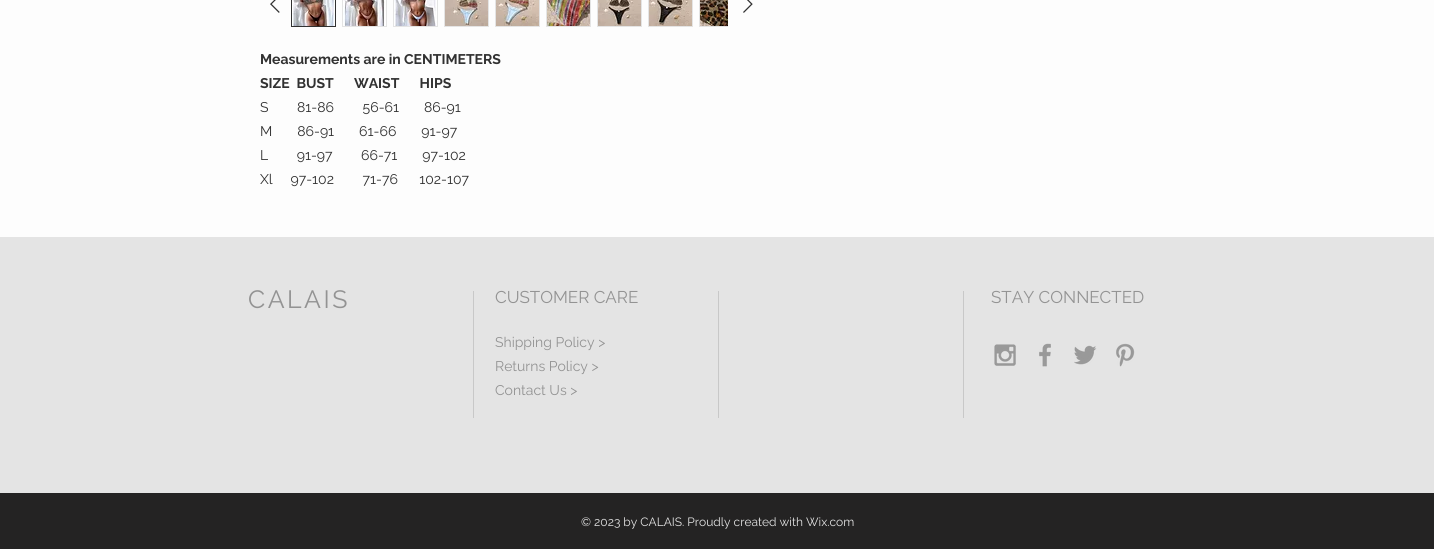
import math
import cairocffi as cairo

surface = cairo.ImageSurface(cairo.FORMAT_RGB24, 1434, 549)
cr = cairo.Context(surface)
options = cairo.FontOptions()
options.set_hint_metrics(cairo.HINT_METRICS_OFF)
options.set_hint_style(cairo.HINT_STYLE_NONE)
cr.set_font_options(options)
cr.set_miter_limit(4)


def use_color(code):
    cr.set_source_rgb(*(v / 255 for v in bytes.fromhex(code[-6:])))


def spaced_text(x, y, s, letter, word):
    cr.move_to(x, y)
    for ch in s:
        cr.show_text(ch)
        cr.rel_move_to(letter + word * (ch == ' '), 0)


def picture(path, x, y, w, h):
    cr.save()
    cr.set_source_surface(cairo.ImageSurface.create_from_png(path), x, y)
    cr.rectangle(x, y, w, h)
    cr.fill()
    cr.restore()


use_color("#fdfdfd")
cr.paint()
picture("img1.png", 270, 0, 10, 13)
cr.rectangle(291.5, -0.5, 44, 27)
use_color("#313131")
cr.set_line_width(1)
cr.stroke()
picture("img2.png", 292, 0, 43, 26)
use_color("#e4e4e4")
cr.rectangle(342, 0, 45, 27)
cr.fill()
picture("img3.png", 343, 0, 43, 26)
cr.rectangle(393, 0, 45, 27)
cr.fill()
picture("img4.png", 394, 0, 43, 26)
cr.rectangle(444, 0, 45, 27)
cr.fill()
picture("img5.png", 445, 0, 43, 26)
cr.rectangle(495, 0, 45, 27)
cr.fill()
picture("img6.png", 496, 0, 43, 26)
cr.rectangle(546, 0, 45, 27)
cr.fill()
picture("img7.png", 547, 0, 43, 26)
cr.rectangle(597, 0, 45, 27)
cr.fill()
picture("img8.png", 598, 0, 43, 26)
cr.rectangle(648, 0, 45, 27)
cr.fill()
picture("img9.png", 649, 0, 43, 26)
cr.rectangle(699, 0, 29, 27)
cr.fill()
picture("img10.png", 700, 0, 28, 26)
picture("img11.png", 743, 0, 10, 13)
cr.select_font_face("Raleway", cairo.FONT_SLANT_NORMAL, cairo.FONT_WEIGHT_BOLD)
cr.set_font_size(14)
use_color("#313131")
cr.move_to(260, 64)
cr.show_text("Measurements are in CENTIMETERS")
cr.move_to(260, 88)
cr.show_text("SIZE  BUST      WAIST      HIPS")
cr.select_font_face("Raleway")
cr.move_to(260, 112)
cr.show_text("S        81-86        56-61       86-91")
cr.move_to(260, 136)
cr.show_text("M       86-91       61-66       91-97")
cr.move_to(260, 160)
cr.show_text("L        91-97        66-71       97-102")
cr.move_to(260, 184)
cr.show_text("Xl     97-102        71-76      102-107")
use_color("#e4e4e4")
cr.rectangle(0, 237, 1434, 256)
cr.fill()
cr.set_font_size(25)
use_color("#939393")
spaced_text(248, 308, "CALAIS", 2.5, 0)
use_color("#c8c8c8")
cr.rectangle(473, 291, 1, 127)
cr.fill()
cr.set_font_size(17)
use_color("#939393")
cr.move_to(495, 303)
cr.show_text("CUSTOMER CARE")
cr.set_font_size(14)
cr.move_to(495, 347)
cr.show_text("Shipping Policy >")
cr.move_to(495, 371)
cr.show_text("Returns Policy >")
cr.move_to(495, 395)
cr.show_text("Contact Us >")
use_color("#c8c8c8")
cr.rectangle(718, 291, 1, 127)
cr.fill()
cr.rectangle(963, 291, 1, 127)
cr.fill()
cr.set_font_size(17)
use_color("#939393")
cr.move_to(991, 303)
cr.show_text("STAY CONNECTED")
picture("img12.png", 994, 344, 22, 22)
picture("img13.png", 1039, 343, 12, 24)
picture("img14.png", 1074, 345, 23, 20)
picture("img15.png", 1116, 343, 19, 24)
use_color("#242323")
cr.rectangle(0, 493, 1434, 56)
cr.fill()
cr.set_font_size(12)
use_color("#e4e4e4")
cr.move_to(581, 526)
cr.show_text("© 2023 by CALAIS. Proudly created with Wix.com")
surface.write_to_png("result.png")
